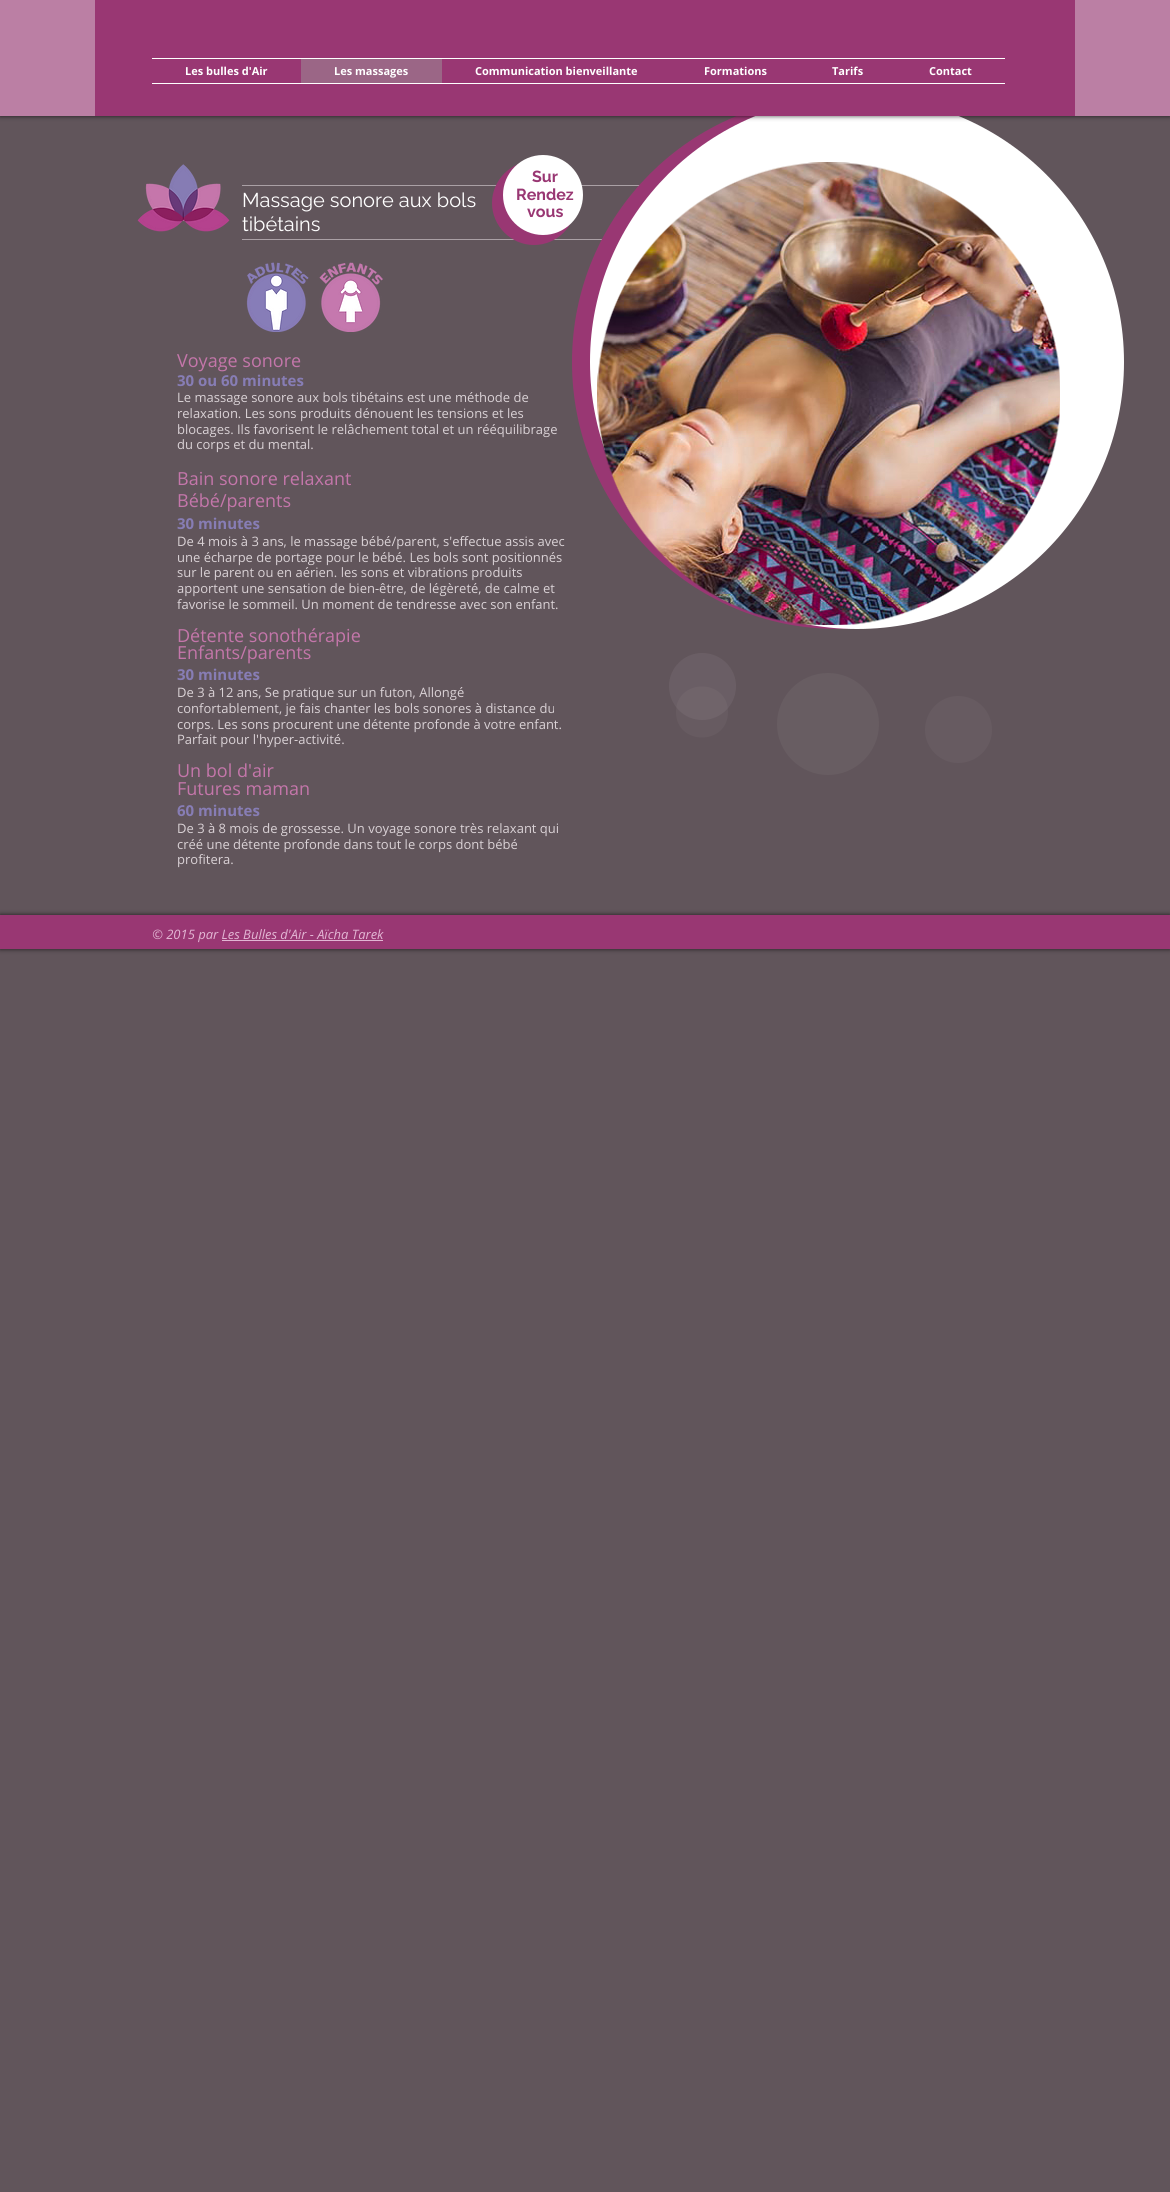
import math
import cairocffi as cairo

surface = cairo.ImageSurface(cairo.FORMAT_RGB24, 1170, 2192)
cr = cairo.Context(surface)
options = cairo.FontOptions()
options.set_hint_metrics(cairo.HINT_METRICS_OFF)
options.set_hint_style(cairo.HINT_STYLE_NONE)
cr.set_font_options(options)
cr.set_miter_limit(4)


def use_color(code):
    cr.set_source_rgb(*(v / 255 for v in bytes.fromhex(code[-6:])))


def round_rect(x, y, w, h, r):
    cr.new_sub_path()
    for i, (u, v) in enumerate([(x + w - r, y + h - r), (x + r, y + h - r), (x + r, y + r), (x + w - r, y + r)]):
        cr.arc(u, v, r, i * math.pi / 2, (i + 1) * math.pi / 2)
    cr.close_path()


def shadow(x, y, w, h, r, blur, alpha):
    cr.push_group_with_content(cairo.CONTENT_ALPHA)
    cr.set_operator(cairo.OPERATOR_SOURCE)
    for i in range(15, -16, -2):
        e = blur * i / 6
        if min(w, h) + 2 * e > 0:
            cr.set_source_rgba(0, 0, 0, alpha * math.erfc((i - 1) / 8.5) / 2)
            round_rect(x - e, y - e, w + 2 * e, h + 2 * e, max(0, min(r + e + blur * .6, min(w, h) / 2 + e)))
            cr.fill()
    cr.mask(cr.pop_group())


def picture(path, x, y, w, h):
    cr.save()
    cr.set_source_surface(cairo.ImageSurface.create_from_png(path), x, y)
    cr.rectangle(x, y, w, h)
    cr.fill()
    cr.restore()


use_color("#61555b")
cr.paint()
use_color("#aaa0a5")
cr.rectangle(242, 185, 404, 1)
cr.fill()
cr.rectangle(242, 239, 360, 1)
cr.fill()
use_color("#993773")
cr.new_path()
cr.move_to(1104, 362)
cr.curve_to(1104, 510, 985, 629, 838, 629)
cr.curve_to(691, 629, 572, 510, 572, 362)
cr.curve_to(572, 215, 691, 96, 838, 96)
cr.curve_to(985, 96, 1104, 215, 1104, 362)
cr.close_path()
cr.fill()
use_color("#ffffff")
cr.new_path()
cr.move_to(1124, 362)
cr.curve_to(1124, 510, 1004, 629, 857, 629)
cr.curve_to(710, 629, 590, 510, 590, 362)
cr.curve_to(590, 215, 710, 96, 857, 96)
cr.curve_to(1004, 96, 1124, 215, 1124, 362)
cr.close_path()
cr.fill()
use_color("#000000")
shadow(0, 0, 1170, 116, 0, 2.5, 0.7)
use_color("#bb7fa4")
cr.rectangle(0, 0, 1170, 116)
cr.fill()
use_color("#993773")
cr.rectangle(95, 0, 980, 116)
cr.fill()
use_color("#ffffff")
cr.rectangle(152, 58, 853, 1)
cr.fill()
cr.rectangle(152, 83, 853, 1)
cr.fill()
cr.select_font_face("Open Sans", cairo.FONT_SLANT_NORMAL, cairo.FONT_WEIGHT_BOLD)
cr.set_font_size(11)
cr.move_to(185, 75)
cr.show_text("Les bulles d'Air")
use_color("#9b6686")
cr.rectangle(301, 59, 141, 24)
cr.fill()
use_color("#ffffff")
cr.move_to(334, 75)
cr.show_text("Les massages")
cr.move_to(475, 75)
cr.show_text("Communication bienveillante")
cr.move_to(704, 75)
cr.show_text("Formations")
cr.move_to(832, 75)
cr.show_text("Tarifs")
cr.move_to(929, 75)
cr.show_text("Contact")
picture("img1.png", 137, 164, 93, 68)
use_color("#993773")
cr.new_path()
cr.move_to(576, 203)
cr.curve_to(576, 226, 557, 245, 534, 245)
cr.curve_to(511, 245, 492, 226, 492, 203)
cr.curve_to(492, 180, 511, 161, 534, 161)
cr.curve_to(557, 161, 576, 180, 576, 203)
cr.close_path()
cr.fill()
use_color("#ffffff")
cr.new_path()
cr.move_to(583, 195)
cr.curve_to(583, 217, 565, 235, 543, 235)
cr.curve_to(521, 235, 503, 217, 503, 195)
cr.curve_to(503, 173, 521, 155, 543, 155)
cr.curve_to(565, 155, 583, 173, 583, 195)
cr.close_path()
cr.fill()
cr.select_font_face("Raleway", cairo.FONT_SLANT_NORMAL, cairo.FONT_WEIGHT_BOLD)
cr.set_font_size(16)
use_color("#993773")
cr.move_to(532, 182)
cr.show_text("Sur")
cr.move_to(516, 200)
cr.show_text("Rendez")
cr.move_to(527, 217)
cr.show_text("vous")
picture("img2.png", 597, 162, 463, 463)
cr.select_font_face("Raleway")
cr.set_font_size(20)
use_color("#ffffff")
cr.move_to(242, 207)
cr.show_text("Massage sonore aux bols")
cr.move_to(242, 231)
cr.show_text("tibétains")
picture("img3.png", 246, 262, 63, 70)
picture("img4.png", 319, 262, 64, 70)
cr.select_font_face("Open Sans")
cr.set_font_size(18)
use_color("#c476aa")
cr.move_to(177, 367)
cr.show_text("Voyage sonore")
cr.select_font_face("Open Sans", cairo.FONT_SLANT_NORMAL, cairo.FONT_WEIGHT_BOLD)
cr.set_font_size(15)
use_color("#877db5")
cr.move_to(177, 386)
cr.show_text("30 ou 60 minutes")
cr.select_font_face("Open Sans")
cr.set_font_size(13)
use_color("#dad2d6")
cr.move_to(177, 402)
cr.show_text("Le massage sonore aux bols tibétains est une méthode de")
cr.move_to(177, 418)
cr.show_text("relaxation. Les sons produits dénouent les tensions et les")
cr.move_to(177, 434)
cr.show_text("blocages. Ils favorisent le relâchement total et un rééquilibrage")
cr.move_to(177, 449)
cr.show_text("du corps et du mental.")
cr.set_font_size(18)
use_color("#c476aa")
cr.move_to(177, 485)
cr.show_text("Bain sonore relaxant")
cr.move_to(177, 507)
cr.show_text("Bébé/parents")
cr.select_font_face("Open Sans", cairo.FONT_SLANT_NORMAL, cairo.FONT_WEIGHT_BOLD)
cr.set_font_size(15)
use_color("#877db5")
cr.move_to(177, 529)
cr.show_text("30 minutes")
cr.select_font_face("Open Sans")
cr.set_font_size(13)
use_color("#dad2d6")
cr.move_to(177, 546)
cr.show_text("De 4 mois à 3 ans, le massage bébé/parent, s'effectue assis avec")
cr.move_to(177, 562)
cr.show_text("une écharpe de portage pour le bébé. Les bols sont positionnés")
cr.move_to(177, 577)
cr.show_text("sur le parent ou en aérien. les sons et vibrations produits")
cr.move_to(177, 593)
cr.show_text("apportent une sensation de bien-être, de légèreté, de calme et")
cr.move_to(177, 609)
cr.show_text("favorise le sommeil. Un moment de tendresse avec son enfant.")
cr.set_font_size(18)
use_color("#c476aa")
cr.move_to(177, 642)
cr.show_text("Détente sonothérapie")
cr.move_to(177, 659)
cr.show_text("Enfants/parents")
cr.select_font_face("Open Sans", cairo.FONT_SLANT_NORMAL, cairo.FONT_WEIGHT_BOLD)
cr.set_font_size(15)
use_color("#877db5")
cr.move_to(177, 680)
cr.show_text("30 minutes")
cr.select_font_face("Open Sans")
cr.set_font_size(13)
use_color("#dad2d6")
cr.move_to(177, 697)
cr.show_text("De 3 à 12 ans, Se pratique sur un futon, Allongé")
cr.move_to(177, 713)
cr.show_text("confortablement, je fais chanter les bols sonores à distance du")
cr.move_to(177, 729)
cr.show_text("corps. Les sons procurent une détente profonde à votre enfant.")
cr.move_to(177, 744)
cr.show_text("Parfait pour l'hyper-activité.")
cr.set_font_size(18)
use_color("#c476aa")
cr.move_to(177, 777)
cr.show_text("Un bol d'air")
cr.move_to(177, 795)
cr.show_text("Futures maman")
cr.select_font_face("Open Sans", cairo.FONT_SLANT_NORMAL, cairo.FONT_WEIGHT_BOLD)
cr.set_font_size(15)
use_color("#877db5")
cr.move_to(177, 816)
cr.show_text("60 minutes")
cr.select_font_face("Open Sans")
cr.set_font_size(13)
use_color("#dad2d6")
cr.move_to(177, 833)
cr.show_text("De 3 à 8 mois de grossesse. Un voyage sonore très relaxant qui")
cr.move_to(177, 849)
cr.show_text("créé une détente profonde dans tout le corps dont bébé")
cr.move_to(177, 864)
cr.show_text("profitera.")
use_color("#675b61")
cr.new_path()
cr.move_to(728, 712)
cr.curve_to(728, 746, 676, 746, 676, 712)
cr.curve_to(676, 678, 728, 678, 728, 712)
cr.close_path()
cr.fill()
cr.set_source_rgba(0.855, 0.824, 0.839, 0.08)
cr.new_path()
cr.move_to(736, 686)
cr.curve_to(736, 705, 721, 720, 702, 720)
cr.curve_to(684, 720, 669, 705, 669, 686)
cr.curve_to(669, 668, 684, 653, 702, 653)
cr.curve_to(721, 653, 736, 668, 736, 686)
cr.close_path()
cr.fill()
use_color("#685d62")
cr.new_path()
cr.move_to(879, 724)
cr.curve_to(879, 752, 856, 775, 828, 775)
cr.curve_to(800, 775, 777, 752, 777, 724)
cr.curve_to(777, 696, 800, 673, 828, 673)
cr.curve_to(856, 673, 879, 696, 879, 724)
cr.close_path()
cr.fill()
use_color("#675b61")
cr.new_path()
cr.move_to(992, 730)
cr.curve_to(992, 748, 977, 763, 958, 763)
cr.curve_to(940, 763, 925, 748, 925, 730)
cr.curve_to(925, 711, 940, 696, 958, 696)
cr.curve_to(977, 696, 992, 711, 992, 730)
cr.close_path()
cr.fill()
use_color("#000000")
shadow(0, 915, 1170, 34, 0, 2.5, 0.7)
use_color("#993773")
cr.rectangle(0, 915, 1170, 34)
cr.fill()
cr.select_font_face("Open Sans", cairo.FONT_SLANT_ITALIC)
use_color("#e2b5d3")
cr.move_to(152, 939)
cr.show_text("© 2015 par Les Bulles d'Air - Aïcha Tarek")
cr.rectangle(222, 940, 161, 1)
cr.fill()
surface.write_to_png("result.png")
